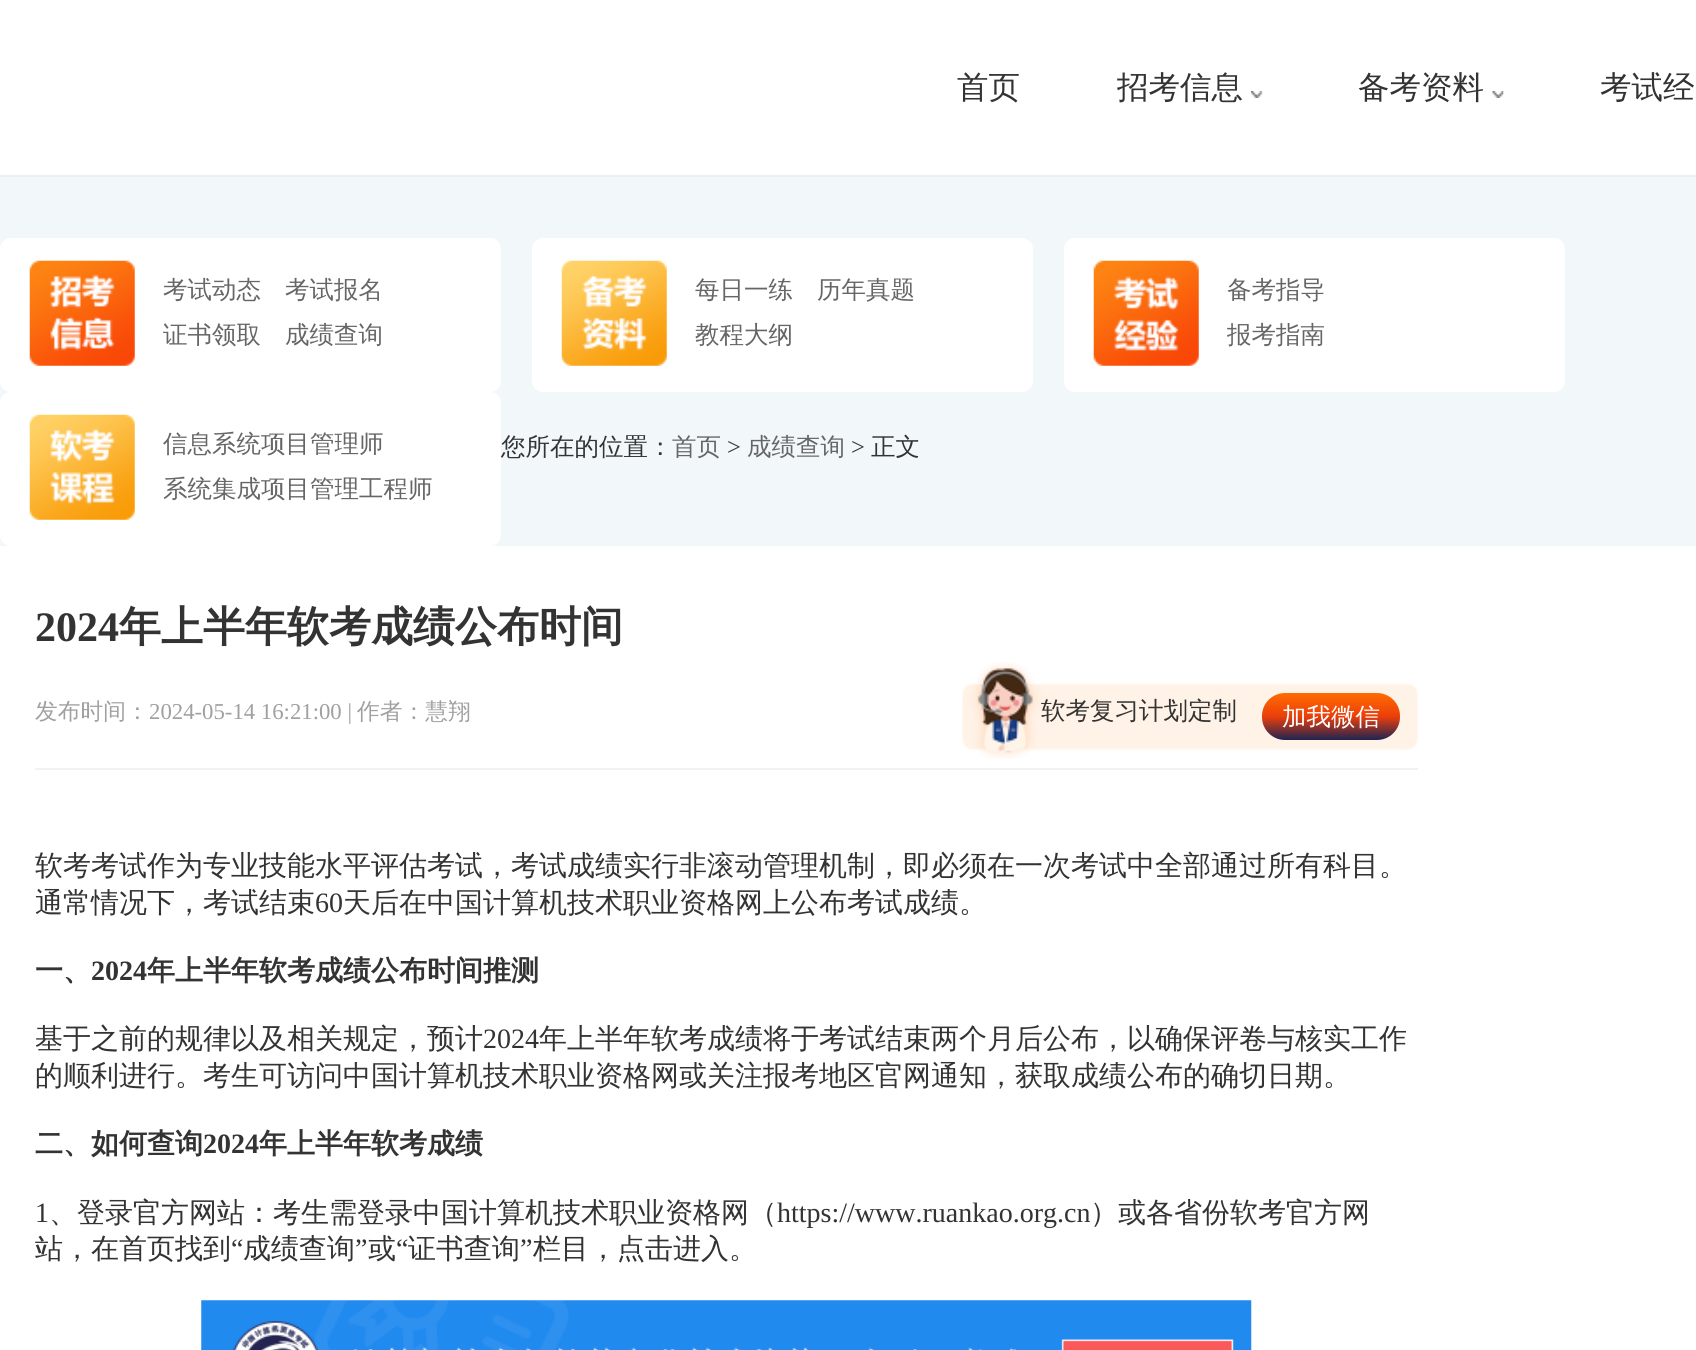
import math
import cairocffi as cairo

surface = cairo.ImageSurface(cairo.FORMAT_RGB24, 1696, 1350)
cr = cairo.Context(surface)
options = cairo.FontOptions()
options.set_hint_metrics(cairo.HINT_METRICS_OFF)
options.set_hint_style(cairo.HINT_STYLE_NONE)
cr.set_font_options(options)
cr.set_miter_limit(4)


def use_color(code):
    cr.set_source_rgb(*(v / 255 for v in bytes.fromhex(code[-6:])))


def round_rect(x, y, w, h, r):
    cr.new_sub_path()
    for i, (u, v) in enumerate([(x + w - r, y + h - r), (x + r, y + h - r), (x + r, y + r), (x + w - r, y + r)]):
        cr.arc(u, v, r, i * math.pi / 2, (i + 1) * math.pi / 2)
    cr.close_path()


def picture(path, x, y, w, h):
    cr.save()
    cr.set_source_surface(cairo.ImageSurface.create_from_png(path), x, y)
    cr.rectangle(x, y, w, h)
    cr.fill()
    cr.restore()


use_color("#f2f7fa")
cr.paint()
use_color("#ffffff")
cr.rectangle(0, 0, 1696, 175)
cr.fill()
use_color("#eeeeee")
cr.rectangle(0, 175, 1696, 2)
cr.fill()
cr.select_font_face("WenQuanYi Zen Hei Medium")
cr.set_font_size(31.5)
use_color("#333333")
cr.move_to(957, 98)
cr.show_text("首页")
cr.move_to(1117, 98)
cr.show_text("招考信息")
picture("img1.png", 1251, 91, 12, 7)
cr.move_to(1358, 98)
cr.show_text("备考资料")
picture("img2.png", 1492, 91, 12, 7)
cr.move_to(1600, 98)
cr.show_text("考试经")
use_color("#ffffff")
round_rect(0, 238, 501, 154, 11)
cr.fill()
picture("img3.png", 29, 260, 106, 106)
cr.set_font_size(24.5)
use_color("#666666")
cr.move_to(163, 298)
cr.show_text("考试动态")
cr.move_to(285, 298)
cr.show_text("考试报名")
cr.move_to(163, 343)
cr.show_text("证书领取")
cr.move_to(285, 343)
cr.show_text("成绩查询")
use_color("#ffffff")
round_rect(532, 238, 501, 154, 11)
cr.fill()
picture("img4.png", 561, 260, 106, 106)
use_color("#666666")
cr.move_to(695, 298)
cr.show_text("每日一练")
cr.move_to(817, 298)
cr.show_text("历年真题")
cr.move_to(695, 343)
cr.show_text("教程大纲")
use_color("#ffffff")
round_rect(1064, 238, 501, 154, 11)
cr.fill()
picture("img5.png", 1093, 260, 106, 106)
use_color("#666666")
cr.move_to(1227, 298)
cr.show_text("备考指导")
cr.move_to(1227, 343)
cr.show_text("报考指南")
use_color("#ffffff")
round_rect(0, 392, 501, 154, 11)
cr.fill()
picture("img6.png", 29, 414, 106, 106)
use_color("#666666")
cr.move_to(163, 452)
cr.show_text("信息系统项目管理师")
cr.move_to(163, 497)
cr.show_text("系统集成项目管理工程师")
use_color("#333333")
cr.move_to(501, 455)
cr.show_text("您所在的位置：")
use_color("#666666")
cr.move_to(672, 455)
cr.show_text("首页")
cr.select_font_face("Liberation Serif")
use_color("#333333")
cr.move_to(727, 455)
cr.show_text(">")
cr.select_font_face("WenQuanYi Zen Hei Medium")
use_color("#666666")
cr.move_to(747, 455)
cr.show_text("成绩查询")
cr.select_font_face("Liberation Serif")
use_color("#333333")
cr.move_to(851, 455)
cr.show_text(">")
cr.select_font_face("WenQuanYi Zen Hei Medium")
cr.move_to(871, 455)
cr.show_text("正文")
use_color("#ffffff")
cr.rectangle(0, 546, 1696, 804)
cr.fill()
cr.select_font_face("Liberation Serif", cairo.FONT_SLANT_NORMAL, cairo.FONT_WEIGHT_BOLD)
cr.set_font_size(42)
use_color("#333333")
cr.move_to(35, 641)
cr.show_text("2024")
cr.select_font_face("WenQuanYi Zen Hei", cairo.FONT_SLANT_NORMAL, cairo.FONT_WEIGHT_BOLD)
cr.move_to(119, 641)
cr.show_text("年上半年软考成绩公布时间")
cr.select_font_face("WenQuanYi Zen Hei Medium")
cr.set_font_size(22.75)
use_color("#a0a0a0")
cr.move_to(35, 719)
cr.show_text("发布时间：")
cr.select_font_face("Liberation Serif")
cr.move_to(149, 719)
cr.show_text("2024-05-14 16:21:00 |")
cr.select_font_face("WenQuanYi Zen Hei Medium")
cr.move_to(357, 719)
cr.show_text("作者：慧翔")
picture("img7.png", 962, 662, 456, 97)
cr.set_font_size(24.5)
use_color("#333333")
cr.move_to(1041, 719)
cr.show_text("软考复习计划定制")
gradient = cairo.LinearGradient(1331, 740, 1331, 693)
gradient.add_color_stop_rgba(0, 0.118, 0.141, 0.318, 1)
gradient.add_color_stop_rgba(0.5, 0.925, 0.243, 0.043, 1)
gradient.add_color_stop_rgba(1, 1, 0.424, 0, 1)
cr.set_source(gradient)
round_rect(1262, 693, 138, 47, 23)
cr.fill()
use_color("#ffffff")
cr.move_to(1282, 725)
cr.show_text("加我微信")
use_color("#f2f2f2")
cr.rectangle(35, 768, 1383, 2)
cr.fill()
cr.set_font_size(28)
use_color("#333333")
cr.move_to(35, 875)
cr.show_text("软考考试作为专业技能水平评估考试，考试成绩实行非滚动管理机制，即必须在一次考试中全部通过所有科目。")
cr.move_to(35, 912)
cr.show_text("通常情况下，考试结束")
cr.select_font_face("Liberation Serif")
cr.move_to(315, 912)
cr.show_text("60")
cr.select_font_face("WenQuanYi Zen Hei Medium")
cr.move_to(343, 912)
cr.show_text("天后在中国计算机技术职业资格网上公布考试成绩。")
cr.select_font_face("WenQuanYi Zen Hei", cairo.FONT_SLANT_NORMAL, cairo.FONT_WEIGHT_BOLD)
cr.move_to(35, 980)
cr.show_text("一、")
cr.select_font_face("Liberation Serif", cairo.FONT_SLANT_NORMAL, cairo.FONT_WEIGHT_BOLD)
cr.move_to(91, 980)
cr.show_text("2024")
cr.select_font_face("WenQuanYi Zen Hei", cairo.FONT_SLANT_NORMAL, cairo.FONT_WEIGHT_BOLD)
cr.move_to(147, 980)
cr.show_text("年上半年软考成绩公布时间推测")
cr.select_font_face("WenQuanYi Zen Hei Medium")
cr.move_to(35, 1048)
cr.show_text("基于之前的规律以及相关规定，预计")
cr.select_font_face("Liberation Serif")
cr.move_to(483, 1048)
cr.show_text("2024")
cr.select_font_face("WenQuanYi Zen Hei Medium")
cr.move_to(539, 1048)
cr.show_text("年上半年软考成绩将于考试结束两个月后公布，以确保评卷与核实工作")
cr.move_to(35, 1085)
cr.show_text("的顺利进行。考生可访问中国计算机技术职业资格网或关注报考地区官网通知，获取成绩公布的确切日期。")
cr.select_font_face("WenQuanYi Zen Hei", cairo.FONT_SLANT_NORMAL, cairo.FONT_WEIGHT_BOLD)
cr.move_to(35, 1153)
cr.show_text("二、如何查询")
cr.select_font_face("Liberation Serif", cairo.FONT_SLANT_NORMAL, cairo.FONT_WEIGHT_BOLD)
cr.move_to(203, 1153)
cr.show_text("2024")
cr.select_font_face("WenQuanYi Zen Hei", cairo.FONT_SLANT_NORMAL, cairo.FONT_WEIGHT_BOLD)
cr.move_to(259, 1153)
cr.show_text("年上半年软考成绩")
cr.select_font_face("Liberation Serif")
cr.move_to(35, 1222)
cr.show_text("1")
cr.select_font_face("WenQuanYi Zen Hei Medium")
cr.move_to(49, 1222)
cr.show_text("、登录官方网站：考生需登录中国计算机技术职业资格网（")
cr.select_font_face("Liberation Serif")
cr.move_to(777, 1222)
cr.show_text("https://www.ruankao.org.cn")
cr.select_font_face("WenQuanYi Zen Hei Medium")
cr.move_to(1090, 1222)
cr.show_text("）或各省份软考官方网")
cr.move_to(35, 1258)
cr.show_text("站，在首页找到")
cr.select_font_face("Liberation Serif")
cr.move_to(231, 1258)
cr.show_text("“")
cr.select_font_face("WenQuanYi Zen Hei Medium")
cr.move_to(243, 1258)
cr.show_text("成绩查询")
cr.select_font_face("Liberation Serif")
cr.move_to(355, 1258)
cr.show_text("”")
cr.select_font_face("WenQuanYi Zen Hei Medium")
cr.move_to(368, 1258)
cr.show_text("或")
cr.select_font_face("Liberation Serif")
cr.move_to(396, 1258)
cr.show_text("“")
cr.select_font_face("WenQuanYi Zen Hei Medium")
cr.move_to(408, 1258)
cr.show_text("证书查询")
cr.select_font_face("Liberation Serif")
cr.move_to(520, 1258)
cr.show_text("”")
cr.select_font_face("WenQuanYi Zen Hei Medium")
cr.move_to(533, 1258)
cr.show_text("栏目，点击进入。")
picture("img8.png", 201, 1300, 1051, 50)
surface.write_to_png("result.png")
